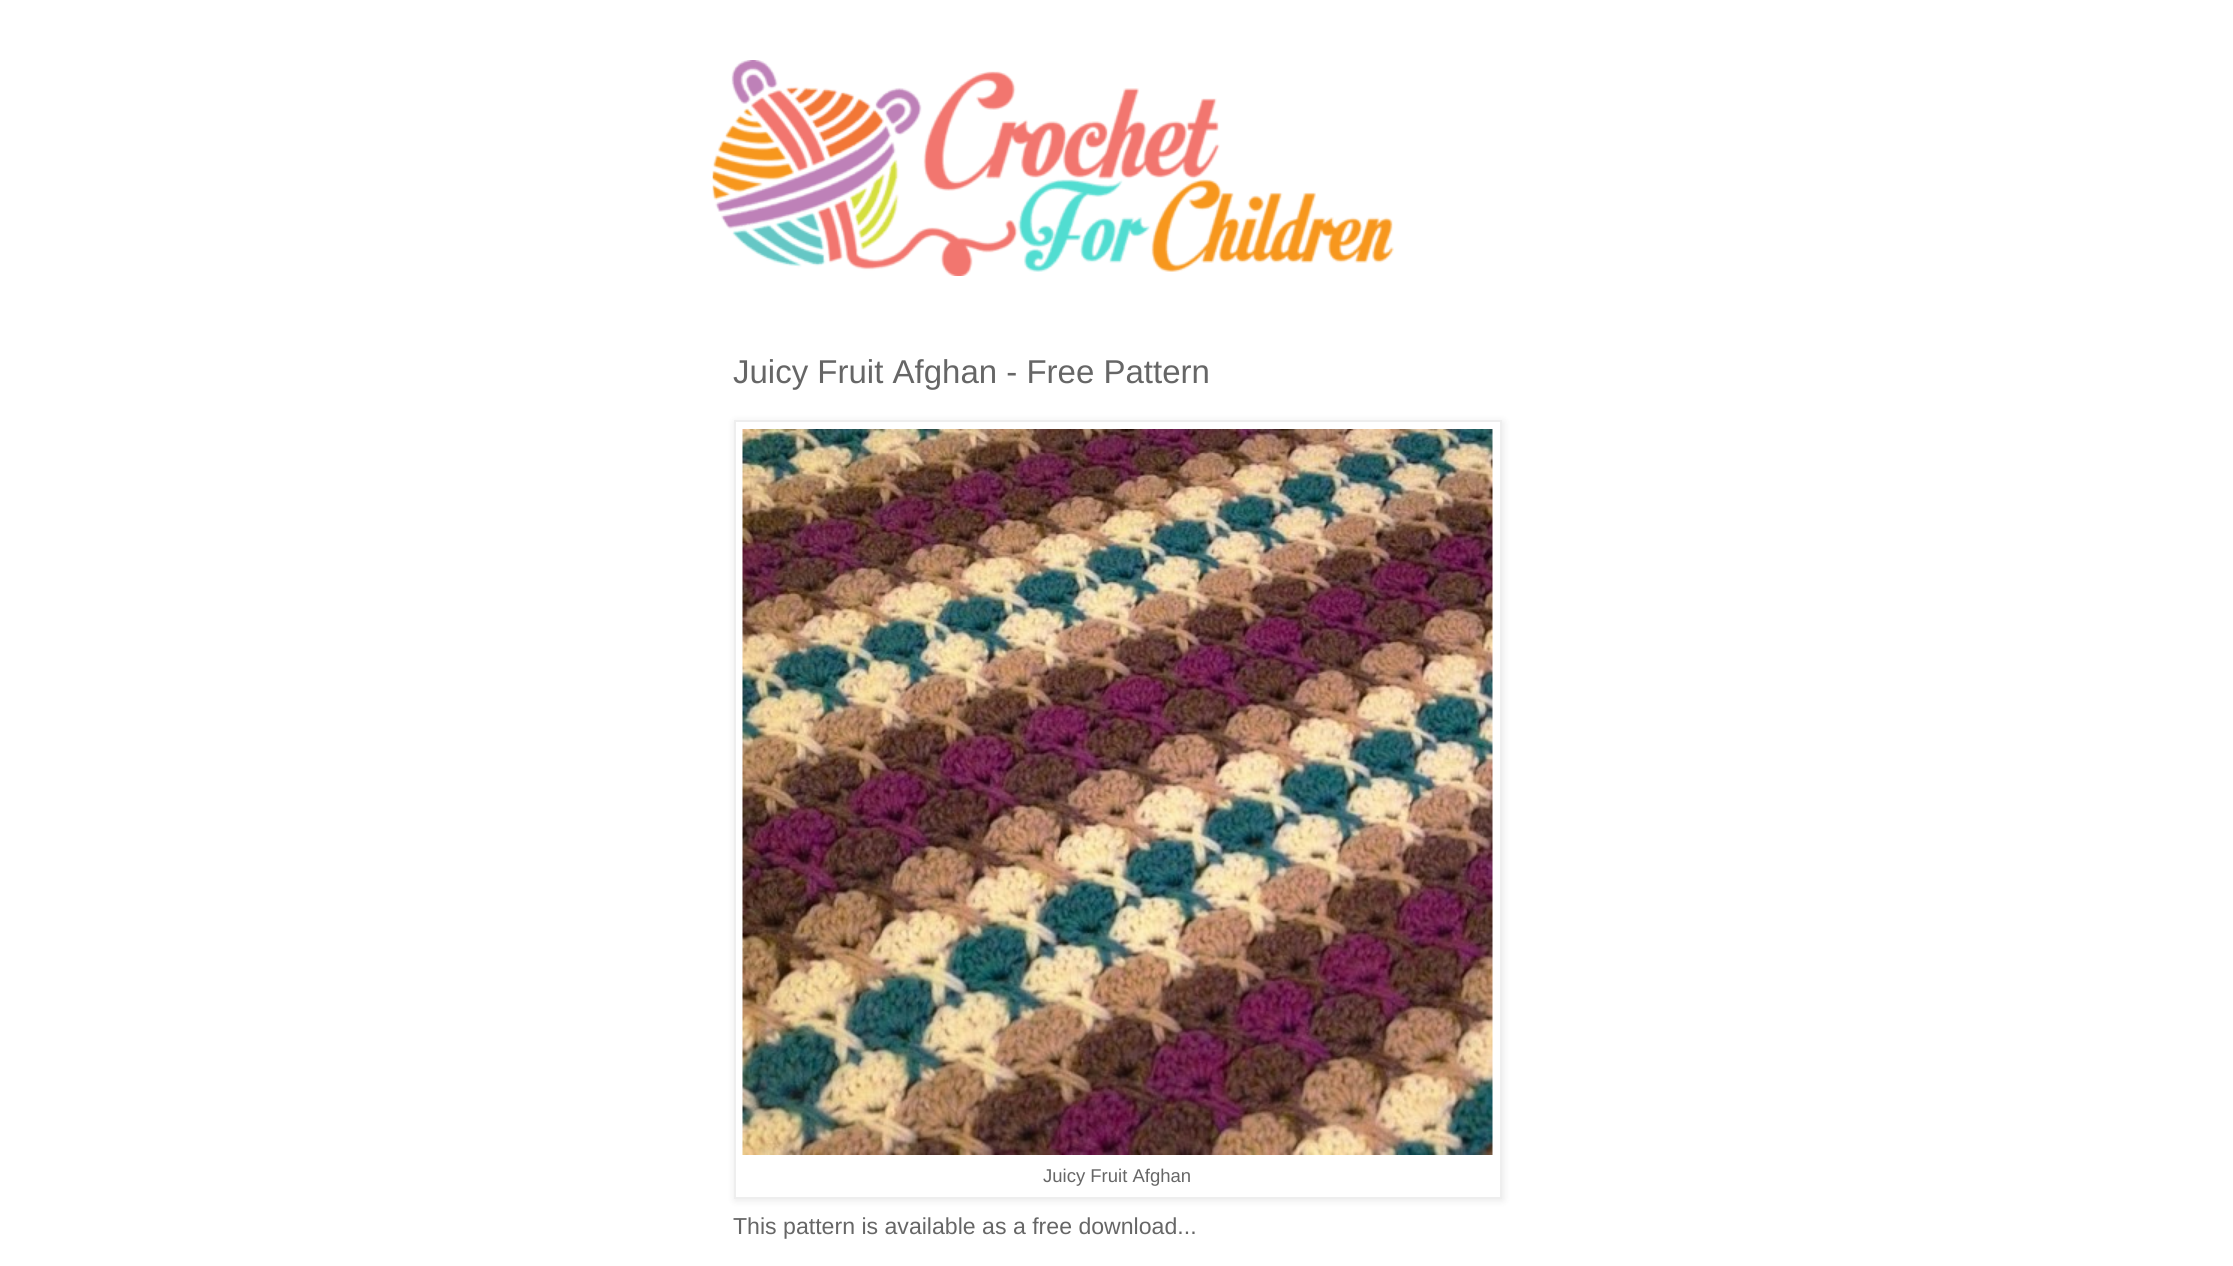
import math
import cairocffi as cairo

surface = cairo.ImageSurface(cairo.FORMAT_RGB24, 2233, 1266)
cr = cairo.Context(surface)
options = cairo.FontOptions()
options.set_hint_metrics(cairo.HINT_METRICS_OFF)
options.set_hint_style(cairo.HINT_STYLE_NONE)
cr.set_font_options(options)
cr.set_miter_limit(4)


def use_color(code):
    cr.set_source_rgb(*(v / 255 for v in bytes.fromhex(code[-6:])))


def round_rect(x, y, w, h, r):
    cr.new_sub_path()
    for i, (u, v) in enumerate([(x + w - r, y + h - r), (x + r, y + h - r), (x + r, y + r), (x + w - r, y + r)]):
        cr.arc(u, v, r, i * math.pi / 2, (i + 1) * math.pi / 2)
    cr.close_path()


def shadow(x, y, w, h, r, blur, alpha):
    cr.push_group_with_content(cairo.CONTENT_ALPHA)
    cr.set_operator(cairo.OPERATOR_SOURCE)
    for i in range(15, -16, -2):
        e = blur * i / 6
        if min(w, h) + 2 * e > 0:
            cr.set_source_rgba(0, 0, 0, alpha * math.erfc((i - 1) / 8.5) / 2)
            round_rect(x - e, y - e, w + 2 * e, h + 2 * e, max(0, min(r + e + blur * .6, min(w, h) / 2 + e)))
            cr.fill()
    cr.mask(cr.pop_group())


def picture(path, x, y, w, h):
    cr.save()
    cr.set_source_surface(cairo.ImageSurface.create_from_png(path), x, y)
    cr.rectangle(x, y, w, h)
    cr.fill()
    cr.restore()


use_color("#ffffff")
cr.paint()
picture("img1.png", 712, 60, 682, 216)
cr.select_font_face("Liberation Sans")
cr.set_font_size(33)
use_color("#666666")
cr.move_to(733, 383)
cr.show_text("Juicy Fruit Afghan - Free Pattern")
use_color("#000000")
shadow(735, 422, 768, 778, 0, 4, 0.1)
use_color("#ffffff")
cr.rectangle(735, 421, 766, 777)
cr.fill_preserve()
use_color("#eeeeee")
cr.stroke()
picture("img2.png", 742, 429, 751, 726)
cr.set_font_size(18.5)
use_color("#666666")
cr.move_to(1043, 1182)
cr.show_text("Juicy Fruit Afghan")
cr.set_font_size(23.1)
cr.move_to(733, 1234)
cr.show_text("This pattern is available as a free download...")
surface.write_to_png("result.png")
